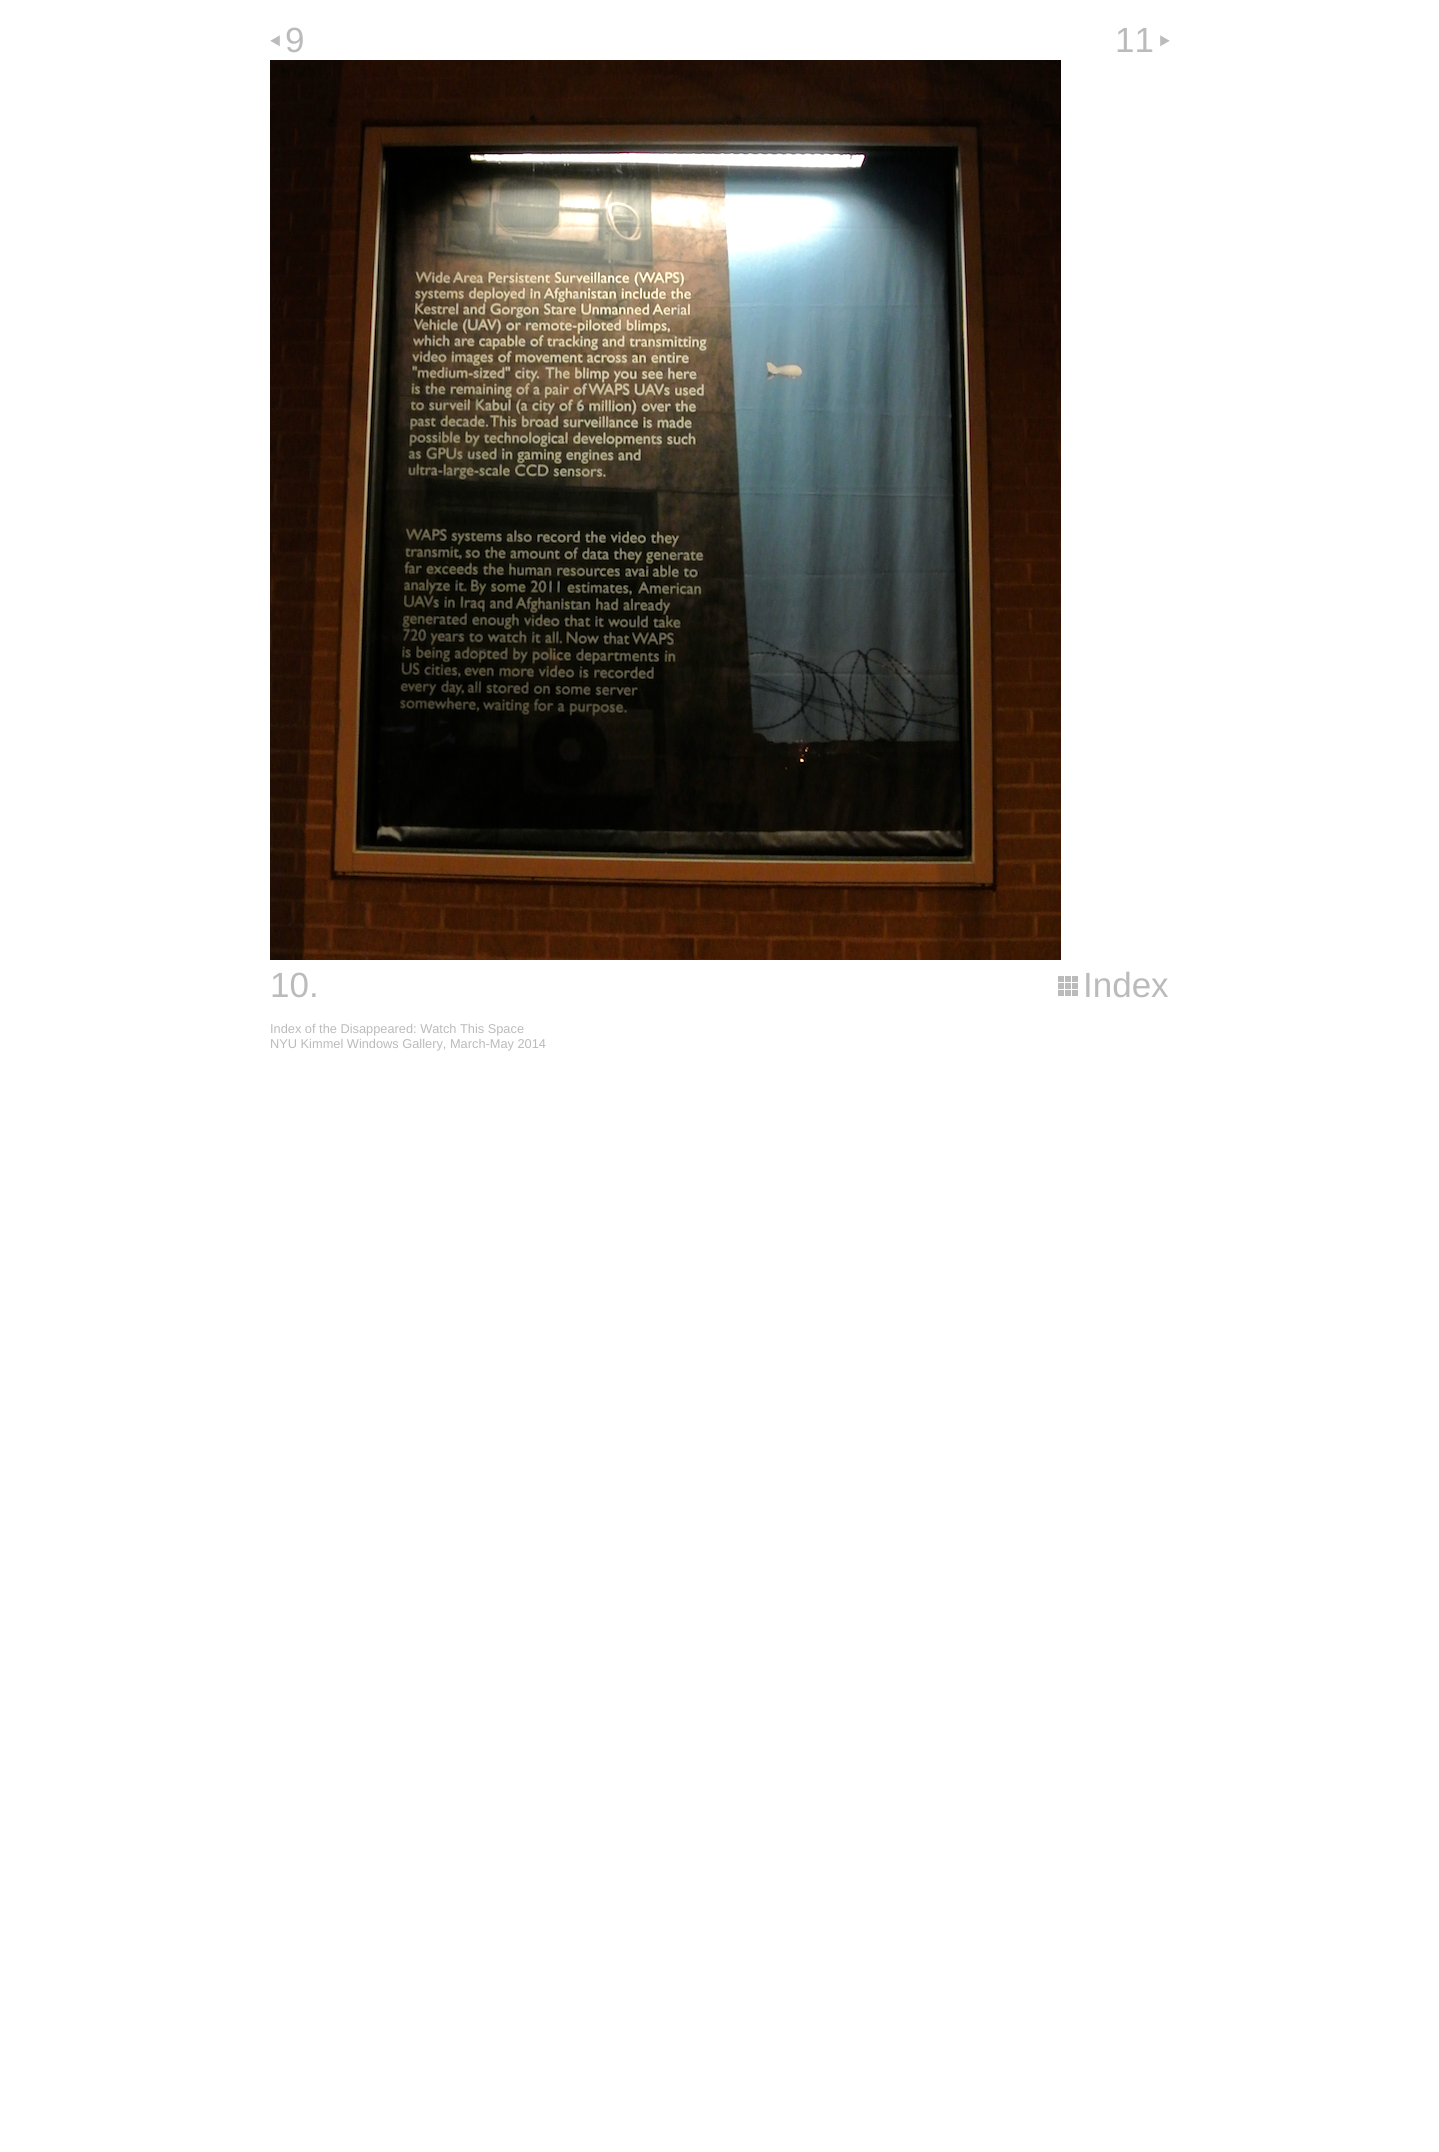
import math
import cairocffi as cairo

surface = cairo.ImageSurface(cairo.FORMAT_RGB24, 1439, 2152)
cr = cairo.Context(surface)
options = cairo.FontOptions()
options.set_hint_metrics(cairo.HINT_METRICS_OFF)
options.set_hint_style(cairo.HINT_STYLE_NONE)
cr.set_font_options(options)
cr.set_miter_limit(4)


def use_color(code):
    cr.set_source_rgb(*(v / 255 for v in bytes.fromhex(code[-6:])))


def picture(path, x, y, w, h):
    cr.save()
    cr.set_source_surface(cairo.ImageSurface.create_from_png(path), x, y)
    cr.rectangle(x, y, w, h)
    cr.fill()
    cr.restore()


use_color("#ffffff")
cr.paint()
picture("img1.png", 270, 35, 10, 12)
cr.select_font_face("Liberation Sans")
cr.set_font_size(35)
use_color("#bbbbbb")
cr.move_to(285, 52)
cr.show_text("9")
cr.move_to(1115, 52)
cr.show_text("11")
picture("img2.png", 1160, 35, 10, 12)
picture("img3.png", 270, 60, 791, 900)
cr.move_to(270, 997)
cr.show_text("10.")
picture("img4.png", 1058, 976, 20, 20)
cr.move_to(1083, 997)
cr.show_text("Index")
cr.set_font_size(12.8)
cr.move_to(270, 1033)
cr.show_text("Index of the Disappeared: Watch This Space")
cr.move_to(270, 1048)
cr.show_text("NYU Kimmel Windows Gallery, March-May 2014")
surface.write_to_png("result.png")
